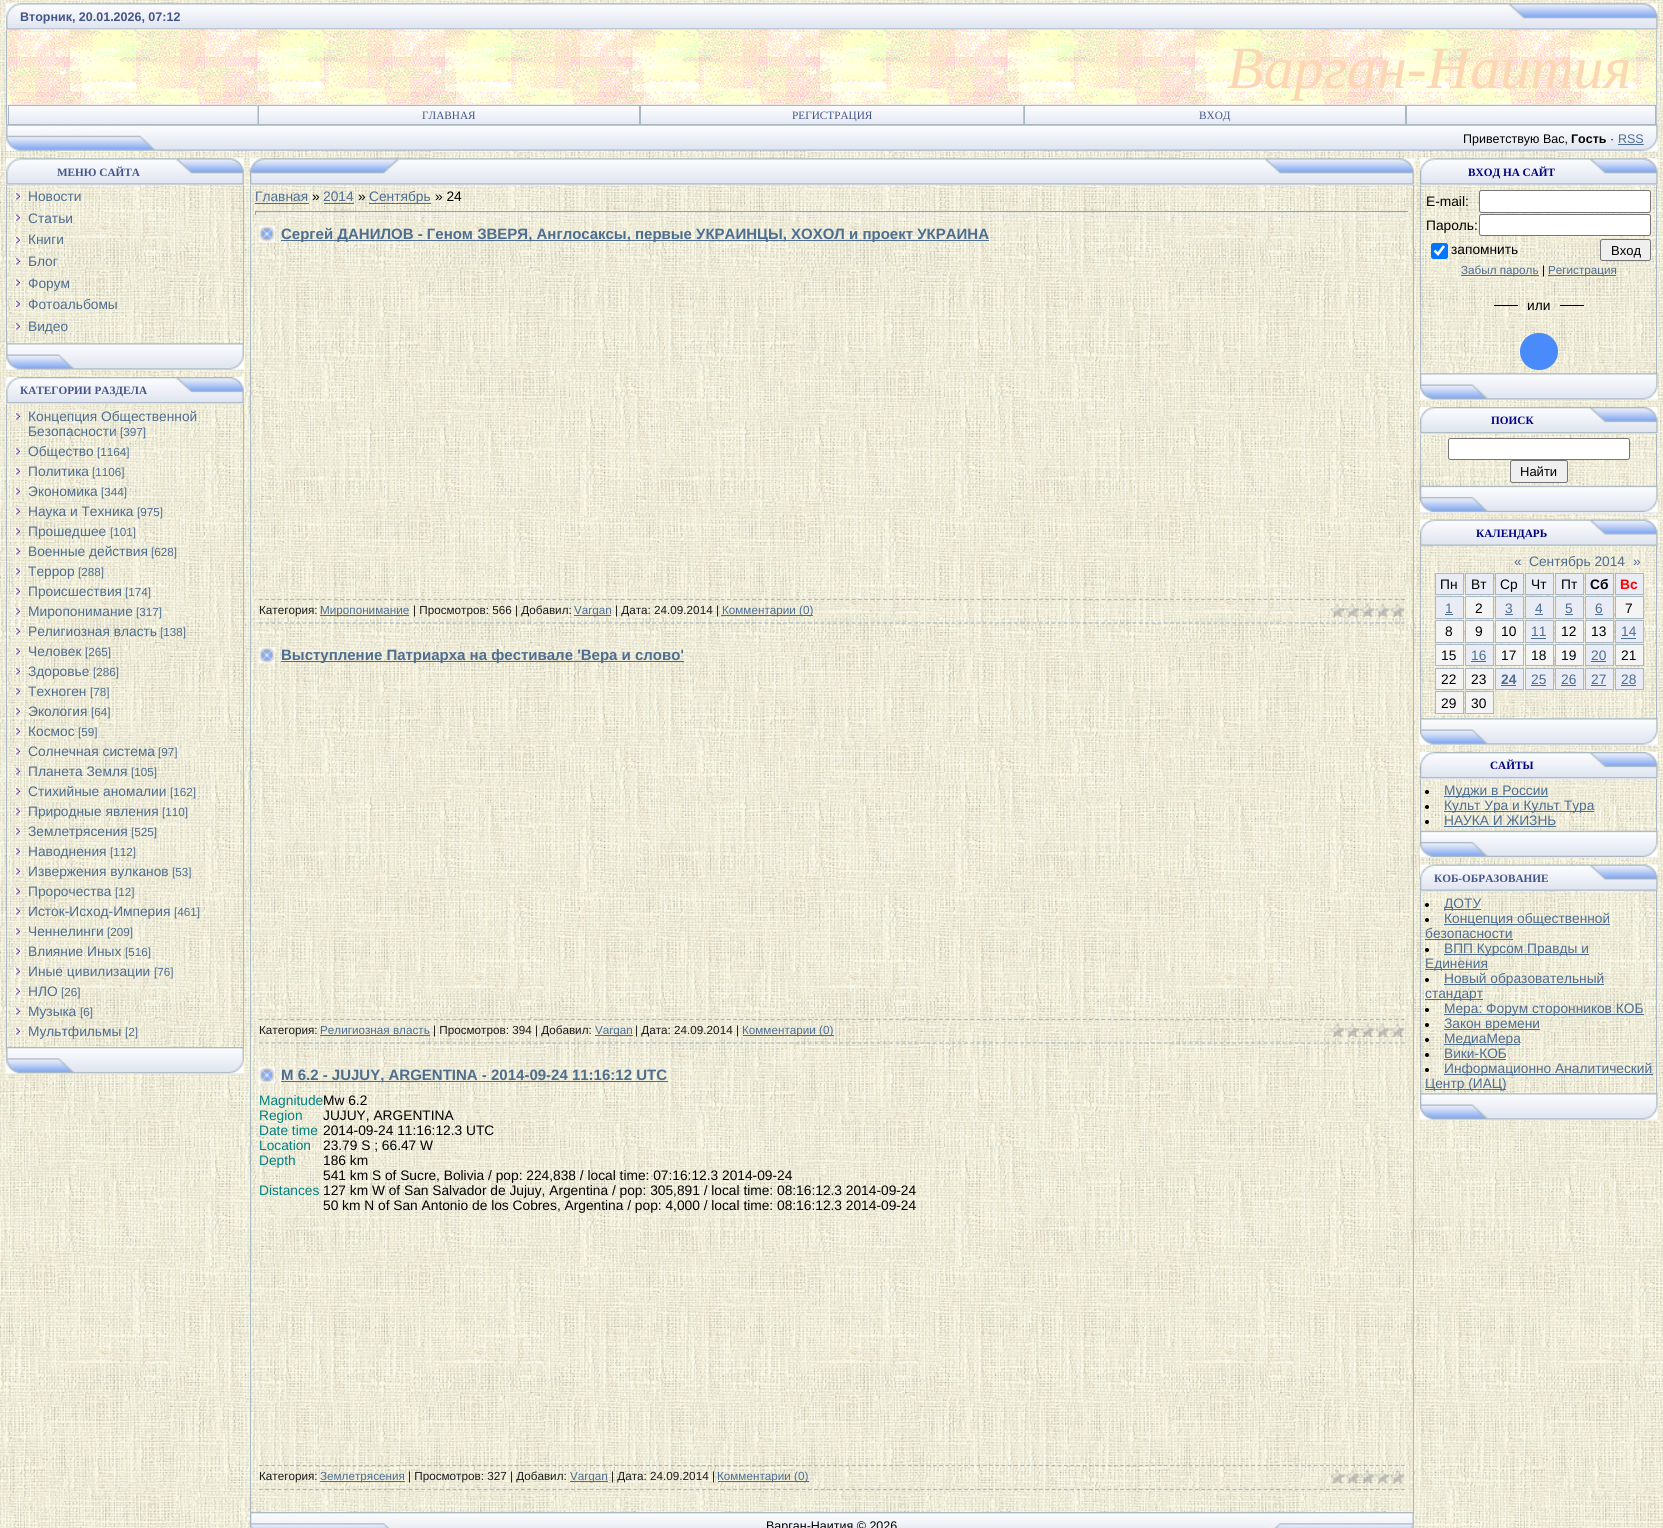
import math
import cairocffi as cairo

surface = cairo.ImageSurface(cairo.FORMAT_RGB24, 1663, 1528)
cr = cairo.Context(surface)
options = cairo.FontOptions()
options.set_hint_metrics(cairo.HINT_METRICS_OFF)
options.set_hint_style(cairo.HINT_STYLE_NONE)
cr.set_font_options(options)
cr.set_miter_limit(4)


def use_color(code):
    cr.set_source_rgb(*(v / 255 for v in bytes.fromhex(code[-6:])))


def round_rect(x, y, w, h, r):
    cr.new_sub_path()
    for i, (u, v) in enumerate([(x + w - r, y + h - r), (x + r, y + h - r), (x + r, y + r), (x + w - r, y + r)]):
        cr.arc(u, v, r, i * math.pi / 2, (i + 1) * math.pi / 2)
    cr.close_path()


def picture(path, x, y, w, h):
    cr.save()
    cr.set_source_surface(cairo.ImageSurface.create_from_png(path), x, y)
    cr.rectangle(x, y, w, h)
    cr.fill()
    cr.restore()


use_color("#ffffff")
cr.paint()
picture("img1.png", 0, 0, 1663, 1528)
use_color("#e4e8f3")
cr.rectangle(6, 4, 14, 26)
cr.fill()
picture("img3.png", 20, 3, 1489, 27)
cr.rectangle(1509, 4, 149, 26)
cr.fill()
use_color("#a9b8c2")
cr.rectangle(1656, 30, 1, 95)
cr.fill()
picture("img5.png", 7, 29, 1650, 76)
picture("img2.png", 6, 3, 14, 27)
cr.select_font_face("Liberation Sans", cairo.FONT_SLANT_NORMAL, cairo.FONT_WEIGHT_BOLD)
cr.set_font_size(12.5)
use_color("#445588")
cr.move_to(20, 21)
cr.show_text("Вторник, 20.01.2026, 07:12")
picture("img4.png", 1508, 3, 150, 27)
use_color("#a9b8c2")
cr.rectangle(6, 30, 1, 95)
cr.fill()
cr.select_font_face("Liberation Serif", cairo.FONT_SLANT_ITALIC)
cr.set_font_size(60)
use_color("#fcd7b3")
cr.move_to(1227, 88)
cr.show_text("Варган-Наития")
picture("img6.png", 7, 104, 251, 21)
cr.rectangle(8.5, 105.5, 249, 19)
use_color("#a9b8c2")
cr.set_line_width(1)
cr.stroke()
picture("img7.png", 257, 104, 383, 21)
cr.rectangle(258.5, 105.5, 381, 19)
cr.stroke()
cr.select_font_face("Liberation Serif")
cr.set_font_size(11.25)
use_color("#445588")
cr.move_to(422, 119)
cr.show_text("ГЛАВНАЯ")
picture("img8.png", 640, 104, 384, 20)
cr.rectangle(640.5, 105.5, 383, 19)
use_color("#a9b8c2")
cr.stroke()
use_color("#445588")
cr.move_to(792, 119)
cr.show_text("РЕГИСТРАЦИЯ")
picture("img9.png", 1023, 104, 384, 21)
cr.rectangle(1024.5, 105.5, 381, 19)
use_color("#a9b8c2")
cr.stroke()
use_color("#445588")
cr.move_to(1199, 119)
cr.show_text("ВХОД")
picture("img10.png", 1406, 104, 251, 21)
cr.rectangle(1406.5, 105.5, 249, 19)
use_color("#a9b8c2")
cr.stroke()
use_color("#e4e8f3")
cr.rectangle(6, 125, 1652, 26)
cr.fill()
picture("img11.png", 6, 124, 149, 27)
picture("img12.png", 155, 124, 1489, 27)
cr.select_font_face("Liberation Sans")
cr.set_font_size(12.5)
use_color("#000000")
cr.move_to(1463, 143)
cr.show_text("Приветствую Вас,")
cr.select_font_face("Liberation Sans", cairo.FONT_SLANT_NORMAL, cairo.FONT_WEIGHT_BOLD)
cr.move_to(1571, 143)
cr.show_text("Гость")
cr.select_font_face("Liberation Sans")
cr.move_to(1610, 143)
cr.show_text("·")
use_color("#4d6d91")
cr.move_to(1618, 143)
cr.show_text("RSS")
cr.rectangle(1618, 144, 26, 1)
cr.fill()
picture("img13.png", 1643, 124, 15, 27)
use_color("#e9ecf5")
cr.rectangle(6, 159, 238, 26)
cr.fill()
picture("img14.png", 6, 158, 14, 27)
picture("img15.png", 20, 158, 157, 27)
cr.select_font_face("Liberation Serif", cairo.FONT_SLANT_NORMAL, cairo.FONT_WEIGHT_BOLD)
cr.set_font_size(11.25)
use_color("#445588")
cr.move_to(57, 176)
cr.show_text("МЕНЮ САЙТА")
picture("img16.png", 176, 158, 68, 27)
use_color("#a9b8c2")
cr.rectangle(243, 185, 1, 159)
cr.fill()
cr.rectangle(6, 185, 1, 159)
cr.fill()
picture("img17.png", 15, 193, 5, 7)
cr.select_font_face("Liberation Sans")
cr.set_font_size(13.75)
use_color("#4d6d91")
cr.move_to(28, 201)
cr.show_text("Новости")
picture("img18.png", 15, 214, 5, 7)
cr.move_to(28, 223)
cr.show_text("Статьи")
picture("img19.png", 15, 237, 5, 7)
cr.move_to(28, 244)
cr.show_text("Книги")
picture("img20.png", 15, 258, 5, 7)
cr.move_to(28, 266)
cr.show_text("Блог")
picture("img21.png", 15, 279, 5, 7)
cr.move_to(28, 288)
cr.show_text("Форум")
picture("img22.png", 15, 300, 5, 7)
cr.move_to(28, 309)
cr.show_text("Фотоальбомы")
picture("img23.png", 15, 323, 5, 7)
cr.move_to(28, 331)
cr.show_text("Видео")
use_color("#e9ecf5")
cr.rectangle(6, 344, 238, 26)
cr.fill()
picture("img24.png", 6, 343, 238, 27)
cr.rectangle(6, 378, 238, 26)
cr.fill()
picture("img25.png", 6, 377, 14, 27)
picture("img26.png", 20, 377, 157, 27)
cr.select_font_face("Liberation Serif", cairo.FONT_SLANT_NORMAL, cairo.FONT_WEIGHT_BOLD)
cr.set_font_size(11.25)
use_color("#445588")
cr.move_to(20, 394)
cr.show_text("КАТЕГОРИИ РАЗДЕЛА")
picture("img27.png", 176, 377, 68, 27)
use_color("#a9b8c2")
cr.rectangle(243, 404, 1, 644)
cr.fill()
cr.rectangle(6, 404, 1, 644)
cr.fill()
picture("img28.png", 15, 413, 5, 7)
cr.select_font_face("Liberation Sans")
cr.set_font_size(13.75)
use_color("#4d6d91")
cr.move_to(28, 421)
cr.show_text("Концепция Общественной")
cr.move_to(28, 436)
cr.show_text("Безопасности")
cr.set_font_size(11.7)
cr.move_to(120, 436)
cr.show_text("[397]")
picture("img29.png", 15, 448, 5, 7)
cr.set_font_size(13.75)
cr.move_to(28, 456)
cr.show_text("Общество")
cr.set_font_size(11.7)
cr.move_to(97, 456)
cr.show_text("[1164]")
picture("img30.png", 15, 468, 5, 7)
cr.set_font_size(13.75)
cr.move_to(28, 476)
cr.show_text("Политика")
cr.set_font_size(11.7)
cr.move_to(92, 476)
cr.show_text("[1106]")
picture("img31.png", 15, 488, 5, 7)
cr.set_font_size(13.75)
cr.move_to(28, 496)
cr.show_text("Экономика")
cr.set_font_size(11.7)
cr.move_to(101, 496)
cr.show_text("[344]")
picture("img32.png", 15, 508, 5, 7)
cr.set_font_size(13.75)
cr.move_to(28, 516)
cr.show_text("Наука и Техника")
cr.set_font_size(11.7)
cr.move_to(137, 516)
cr.show_text("[975]")
picture("img33.png", 15, 528, 5, 7)
cr.set_font_size(13.75)
cr.move_to(28, 536)
cr.show_text("Прошедшее")
cr.set_font_size(11.7)
cr.move_to(110, 536)
cr.show_text("[101]")
picture("img34.png", 15, 548, 5, 7)
cr.set_font_size(13.75)
cr.move_to(28, 556)
cr.show_text("Военные действия")
cr.set_font_size(11.7)
cr.move_to(151, 556)
cr.show_text("[628]")
picture("img17.png", 15, 568, 5, 7)
cr.set_font_size(13.75)
cr.move_to(28, 576)
cr.show_text("Террор")
cr.set_font_size(11.7)
cr.move_to(78, 576)
cr.show_text("[288]")
picture("img35.png", 15, 588, 5, 7)
cr.set_font_size(13.75)
cr.move_to(28, 596)
cr.show_text("Происшествия")
cr.set_font_size(11.7)
cr.move_to(125, 596)
cr.show_text("[174]")
picture("img36.png", 15, 608, 5, 7)
cr.set_font_size(13.75)
cr.move_to(28, 616)
cr.show_text("Миропонимание")
cr.set_font_size(11.7)
cr.move_to(136, 616)
cr.show_text("[317]")
picture("img37.png", 15, 628, 5, 7)
cr.set_font_size(13.75)
cr.move_to(28, 636)
cr.show_text("Религиозная власть")
cr.set_font_size(11.7)
cr.move_to(160, 636)
cr.show_text("[138]")
picture("img38.png", 15, 648, 5, 7)
cr.set_font_size(13.75)
cr.move_to(28, 656)
cr.show_text("Человек")
cr.set_font_size(11.7)
cr.move_to(85, 656)
cr.show_text("[265]")
picture("img39.png", 15, 668, 5, 7)
cr.set_font_size(13.75)
cr.move_to(28, 676)
cr.show_text("Здоровье")
cr.set_font_size(11.7)
cr.move_to(93, 676)
cr.show_text("[286]")
picture("img40.png", 15, 688, 5, 7)
cr.set_font_size(13.75)
cr.move_to(28, 696)
cr.show_text("Техноген")
cr.set_font_size(11.7)
cr.move_to(90, 696)
cr.show_text("[78]")
picture("img41.png", 15, 708, 5, 7)
cr.set_font_size(13.75)
cr.move_to(28, 716)
cr.show_text("Экология")
cr.set_font_size(11.7)
cr.move_to(91, 716)
cr.show_text("[64]")
picture("img42.png", 15, 728, 5, 7)
cr.set_font_size(13.75)
cr.move_to(28, 736)
cr.show_text("Космос")
cr.set_font_size(11.7)
cr.move_to(78, 736)
cr.show_text("[59]")
picture("img43.png", 15, 748, 5, 7)
cr.set_font_size(13.75)
cr.move_to(28, 756)
cr.show_text("Солнечная система")
cr.set_font_size(11.7)
cr.move_to(158, 756)
cr.show_text("[97]")
picture("img44.png", 15, 768, 5, 7)
cr.set_font_size(13.75)
cr.move_to(28, 776)
cr.show_text("Планета Земля")
cr.set_font_size(11.7)
cr.move_to(131, 776)
cr.show_text("[105]")
picture("img28.png", 15, 788, 5, 7)
cr.set_font_size(13.75)
cr.move_to(28, 796)
cr.show_text("Стихийные аномалии")
cr.set_font_size(11.7)
cr.move_to(170, 796)
cr.show_text("[162]")
picture("img45.png", 15, 808, 5, 7)
cr.set_font_size(13.75)
cr.move_to(28, 816)
cr.show_text("Природные явления")
cr.set_font_size(11.7)
cr.move_to(162, 816)
cr.show_text("[110]")
picture("img46.png", 15, 828, 5, 7)
cr.set_font_size(13.75)
cr.move_to(28, 836)
cr.show_text("Землетрясения")
cr.set_font_size(11.7)
cr.move_to(131, 836)
cr.show_text("[525]")
picture("img47.png", 15, 848, 5, 7)
cr.set_font_size(13.75)
cr.move_to(28, 856)
cr.show_text("Наводнения")
cr.set_font_size(11.7)
cr.move_to(110, 856)
cr.show_text("[112]")
picture("img48.png", 15, 868, 5, 7)
cr.set_font_size(13.75)
cr.move_to(28, 876)
cr.show_text("Извержения вулканов")
cr.set_font_size(11.7)
cr.move_to(172, 876)
cr.show_text("[53]")
picture("img49.png", 15, 888, 5, 7)
cr.set_font_size(13.75)
cr.move_to(28, 896)
cr.show_text("Пророчества")
cr.set_font_size(11.7)
cr.move_to(115, 896)
cr.show_text("[12]")
picture("img50.png", 15, 908, 5, 7)
cr.set_font_size(13.75)
cr.move_to(28, 916)
cr.show_text("Исток-Исход-Империя")
cr.set_font_size(11.7)
cr.move_to(174, 916)
cr.show_text("[461]")
picture("img51.png", 15, 928, 5, 7)
cr.set_font_size(13.75)
cr.move_to(28, 936)
cr.show_text("Ченнелинги")
cr.set_font_size(11.7)
cr.move_to(107, 936)
cr.show_text("[209]")
picture("img52.png", 15, 948, 5, 7)
cr.set_font_size(13.75)
cr.move_to(28, 956)
cr.show_text("Влияние Иных")
cr.set_font_size(11.7)
cr.move_to(125, 956)
cr.show_text("[516]")
picture("img53.png", 15, 968, 5, 7)
cr.set_font_size(13.75)
cr.move_to(28, 976)
cr.show_text("Иные цивилизации")
cr.set_font_size(11.7)
cr.move_to(154, 976)
cr.show_text("[76]")
picture("img54.png", 15, 988, 5, 7)
cr.set_font_size(13.75)
cr.move_to(28, 996)
cr.show_text("НЛО")
cr.set_font_size(11.7)
cr.move_to(61, 996)
cr.show_text("[26]")
picture("img20.png", 15, 1008, 5, 7)
cr.set_font_size(13.75)
cr.move_to(28, 1016)
cr.show_text("Музыка")
cr.set_font_size(11.7)
cr.move_to(80, 1016)
cr.show_text("[6]")
picture("img55.png", 15, 1028, 5, 7)
cr.set_font_size(13.75)
cr.move_to(28, 1036)
cr.show_text("Мультфильмы")
cr.set_font_size(11.7)
cr.move_to(125, 1036)
cr.show_text("[2]")
use_color("#e9ecf5")
cr.rectangle(6, 1048, 238, 26)
cr.fill()
picture("img56.png", 6, 1047, 238, 27)
cr.rectangle(250, 159, 149, 26)
cr.fill()
cr.rectangle(399, 184, 866, 1)
cr.fill()
picture("img58.png", 398, 158, 867, 27)
picture("img57.png", 250, 158, 149, 27)
cr.rectangle(1265, 159, 149, 26)
cr.fill()
picture("img59.png", 1265, 158, 149, 27)
use_color("#a9b8c2")
cr.rectangle(1413, 185, 1, 1328)
cr.fill()
cr.rectangle(250, 185, 1, 1328)
cr.fill()
cr.set_font_size(13.75)
use_color("#4d6d91")
cr.move_to(255, 201)
cr.show_text("Главная")
cr.rectangle(255, 203, 54, 1)
cr.fill()
use_color("#000000")
cr.move_to(312, 201)
cr.show_text("»")
use_color("#4d6d91")
cr.move_to(323, 201)
cr.show_text("2014")
cr.rectangle(324, 203, 30, 1)
cr.fill()
use_color("#000000")
cr.move_to(358, 201)
cr.show_text("»")
use_color("#4d6d91")
cr.rectangle(369, 203, 62, 1)
cr.fill()
cr.move_to(369, 201)
cr.show_text("Сентябрь")
use_color("#000000")
cr.move_to(435, 201)
cr.show_text("» 24")
use_color("#9f9f9f")
cr.rectangle(255, 211, 1154, 1)
cr.fill()
use_color("#eeeeee")
cr.rectangle(1408, 211, 1, 4)
cr.fill()
cr.rectangle(255, 214, 1154, 1)
cr.fill()
use_color("#9f9f9f")
cr.rectangle(255, 211, 1, 4)
cr.fill()
picture("img60.png", 258, 225, 17, 17)
use_color("#4d6d91")
cr.rectangle(281, 240, 708, 1)
cr.fill()
cr.select_font_face("Liberation Sans", cairo.FONT_SLANT_NORMAL, cairo.FONT_WEIGHT_BOLD)
cr.set_font_size(15)
cr.move_to(281, 239)
cr.show_text("Сергей ДАНИЛОВ - Геном ЗВЕРЯ, Англосаксы, первые УКРАИНЦЫ, ХОХОЛ и проект УКРАИНА")
cr.new_path()
cr.move_to(259, 599.5)
cr.line_to(1405, 599.5)
use_color("#a9b8c2")
cr.set_line_width(1.2)
cr.set_dash([3.75, 2.49])
cr.stroke()
cr.new_path()
cr.move_to(259, 623)
cr.line_to(1405, 623)
cr.stroke()
cr.select_font_face("Liberation Sans")
cr.set_font_size(11.7)
use_color("#1a1a1a")
cr.move_to(259, 614)
cr.show_text("Категория:")
use_color("#4d6d91")
cr.rectangle(320, 615, 89, 1)
cr.fill()
cr.move_to(320, 614)
cr.show_text("Миропонимание")
use_color("#1a1a1a")
cr.move_to(413, 614)
cr.show_text("| Просмотров: 566 | Добавил:")
use_color("#4d6d91")
cr.rectangle(574, 615, 37, 1)
cr.fill()
cr.move_to(574, 614)
cr.show_text("Vargan")
use_color("#1a1a1a")
cr.move_to(615, 614)
cr.show_text("| Дата: 24.09.2014 |")
use_color("#4d6d91")
cr.rectangle(721, 615, 92, 1)
cr.fill()
cr.move_to(722, 614)
cr.show_text("Комментарии (0)")
picture("img61.png", 1330, 603, 75, 16)
picture("img62.png", 258, 647, 17, 17)
cr.rectangle(281, 661, 403, 1)
cr.fill()
cr.select_font_face("Liberation Sans", cairo.FONT_SLANT_NORMAL, cairo.FONT_WEIGHT_BOLD)
cr.set_font_size(15)
cr.move_to(281, 660)
cr.show_text("Выступление Патриарха на фестивале 'Вера и слово'")
cr.new_path()
cr.move_to(259, 1019.5)
cr.line_to(1405, 1019.5)
use_color("#a9b8c2")
cr.stroke()
cr.new_path()
cr.move_to(259, 1043)
cr.line_to(1405, 1043)
cr.stroke()
cr.select_font_face("Liberation Sans")
cr.set_font_size(11.7)
use_color("#1a1a1a")
cr.move_to(259, 1034)
cr.show_text("Категория:")
use_color("#4d6d91")
cr.move_to(320, 1034)
cr.show_text("Религиозная власть")
cr.rectangle(320, 1035, 110, 1)
cr.fill()
use_color("#1a1a1a")
cr.move_to(433, 1034)
cr.show_text("| Просмотров: 394 | Добавил:")
use_color("#4d6d91")
cr.rectangle(595, 1035, 38, 1)
cr.fill()
cr.move_to(595, 1034)
cr.show_text("Vargan")
use_color("#1a1a1a")
cr.move_to(635, 1034)
cr.show_text("| Дата: 24.09.2014 |")
use_color("#4d6d91")
cr.rectangle(743, 1035, 91, 1)
cr.fill()
cr.move_to(742, 1034)
cr.show_text("Комментарии (0)")
picture("img63.png", 1330, 1023, 75, 16)
picture("img64.png", 258, 1067, 17, 17)
cr.rectangle(281, 1081, 387, 1)
cr.fill()
cr.select_font_face("Liberation Sans", cairo.FONT_SLANT_NORMAL, cairo.FONT_WEIGHT_BOLD)
cr.set_font_size(15)
cr.move_to(281, 1080)
cr.show_text("M 6.2 - JUJUY, ARGENTINA - 2014-09-24 11:16:12 UTC")
cr.select_font_face("Liberation Sans")
cr.set_font_size(13.75)
use_color("#008080")
cr.move_to(259, 1105)
cr.show_text("Magnitude")
use_color("#000000")
cr.move_to(323, 1105)
cr.show_text("Mw 6.2")
use_color("#008080")
cr.move_to(259, 1120)
cr.show_text("Region")
use_color("#000000")
cr.move_to(323, 1120)
cr.show_text("JUJUY, ARGENTINA")
use_color("#008080")
cr.move_to(259, 1135)
cr.show_text("Date time")
use_color("#000000")
cr.move_to(323, 1135)
cr.show_text("2014-09-24 11:16:12.3 UTC")
use_color("#008080")
cr.move_to(259, 1150)
cr.show_text("Location")
use_color("#000000")
cr.move_to(323, 1150)
cr.show_text("23.79 S ; 66.47 W")
use_color("#008080")
cr.move_to(259, 1165)
cr.show_text("Depth")
use_color("#000000")
cr.move_to(323, 1165)
cr.show_text("186 km")
use_color("#008080")
cr.move_to(259, 1195)
cr.show_text("Distances")
use_color("#000000")
cr.move_to(323, 1180)
cr.show_text("541 km S of Sucre, Bolivia / pop: 224,838 / local time: 07:16:12.3 2014-09-24")
cr.move_to(323, 1195)
cr.show_text("127 km W of San Salvador de Jujuy, Argentina / pop: 305,891 / local time: 08:16:12.3 2014-09-24")
cr.move_to(323, 1210)
cr.show_text("50 km N of San Antonio de los Cobres, Argentina / pop: 4,000 / local time: 08:16:12.3 2014-09-24")
cr.new_path()
cr.move_to(259, 1465.5)
cr.line_to(1405, 1465.5)
use_color("#a9b8c2")
cr.stroke()
cr.new_path()
cr.move_to(259, 1489.5)
cr.line_to(1405, 1489.5)
cr.stroke()
cr.set_font_size(11.7)
use_color("#1a1a1a")
cr.move_to(259, 1480)
cr.show_text("Категория:")
use_color("#4d6d91")
cr.rectangle(320, 1481, 85, 1)
cr.fill()
cr.move_to(320, 1480)
cr.show_text("Землетрясения")
use_color("#1a1a1a")
cr.move_to(408, 1480)
cr.show_text("| Просмотров: 327 | Добавил:")
use_color("#4d6d91")
cr.rectangle(570, 1481, 38, 1)
cr.fill()
cr.move_to(570, 1480)
cr.show_text("Vargan")
use_color("#1a1a1a")
cr.move_to(611, 1480)
cr.show_text("| Дата: 24.09.2014 |")
use_color("#4d6d91")
cr.rectangle(718, 1481, 91, 1)
cr.fill()
cr.move_to(717, 1480)
cr.show_text("Комментарии (0)")
picture("img65.png", 1330, 1469, 75, 16)
picture("img67.png", 398, 1512, 867, 14)
picture("img66.png", 250, 1512, 149, 16)
use_color("#e9ecf5")
cr.rectangle(399, 1526, 866, 2)
cr.fill()
cr.set_font_size(12.5)
use_color("#000000")
cr.move_to(766, 1530)
cr.show_text("Варган-Наития © 2026")
picture("img68.png", 1265, 1512, 149, 16)
use_color("#e9ecf5")
cr.rectangle(1420, 159, 238, 26)
cr.fill()
picture("img70.png", 1433, 158, 157, 27)
picture("img69.png", 1420, 158, 14, 27)
cr.select_font_face("Liberation Serif", cairo.FONT_SLANT_NORMAL, cairo.FONT_WEIGHT_BOLD)
cr.set_font_size(11.25)
use_color("#000080")
cr.move_to(1468, 176)
cr.show_text("ВХОД НА САЙТ")
picture("img71.png", 1590, 158, 68, 27)
use_color("#a9b8c2")
cr.rectangle(1656, 185, 1, 189)
cr.fill()
cr.rectangle(1420, 185, 1, 189)
cr.fill()
cr.select_font_face("Liberation Sans")
cr.set_font_size(13.75)
use_color("#000000")
cr.move_to(1426, 206)
cr.show_text("E-mail:")
use_color("#ffffff")
round_rect(1479.5, 190.5, 171, 22, 2)
cr.fill_preserve()
use_color("#767676")
cr.set_line_width(1)
cr.set_dash([])
cr.stroke()
use_color("#000000")
cr.move_to(1426, 230)
cr.show_text("Пароль:")
use_color("#ffffff")
round_rect(1479.5, 214.5, 171, 21, 2)
cr.fill_preserve()
use_color("#767676")
cr.stroke()
use_color("#0075ff")
round_rect(1431, 243, 17, 16, 2.5)
cr.fill()
cr.new_path()
cr.move_to(1434.5, 250.5)
cr.line_to(1438, 254)
cr.line_to(1444, 246)
use_color("#ffffff")
cr.set_line_width(2.6)
cr.stroke()
use_color("#000000")
cr.move_to(1451, 254)
cr.show_text("запомнить")
use_color("#efefef")
round_rect(1600.5, 239.5, 50, 21, 2)
cr.fill_preserve()
use_color("#767676")
cr.set_line_width(1)
cr.stroke()
cr.set_font_size(13)
use_color("#000000")
cr.move_to(1611, 255)
cr.show_text("Вход")
use_color("#4d6d91")
cr.rectangle(1461, 275, 78, 1)
cr.fill()
cr.set_font_size(11.7)
cr.move_to(1461, 274)
cr.show_text("Забыл пароль")
use_color("#000000")
cr.move_to(1542, 274)
cr.show_text("|")
use_color("#4d6d91")
cr.rectangle(1548, 275, 68, 1)
cr.fill()
cr.move_to(1548, 274)
cr.show_text("Регистрация")
use_color("#000000")
cr.rectangle(1494, 305, 24, 1)
cr.fill()
cr.set_font_size(13.75)
cr.move_to(1527, 310)
cr.show_text("или")
cr.rectangle(1560, 305, 24, 1)
cr.fill()
use_color("#498bfa")
round_rect(1520, 333, 38, 37, 18.5)
cr.fill()
use_color("#e9ecf5")
cr.rectangle(1420, 374, 238, 26)
cr.fill()
picture("img72.png", 1420, 373, 238, 27)
cr.rectangle(1420, 408, 238, 26)
cr.fill()
picture("img74.png", 1433, 407, 157, 27)
picture("img73.png", 1420, 407, 14, 27)
cr.select_font_face("Liberation Serif", cairo.FONT_SLANT_NORMAL, cairo.FONT_WEIGHT_BOLD)
cr.set_font_size(11.25)
use_color("#000080")
cr.move_to(1491, 424)
cr.show_text("ПОИСК")
picture("img75.png", 1590, 407, 68, 27)
use_color("#a9b8c2")
cr.rectangle(1656, 434, 1, 52)
cr.fill()
cr.rectangle(1420, 434, 1, 52)
cr.fill()
use_color("#ffffff")
round_rect(1448.5, 438.5, 181, 21, 2)
cr.fill_preserve()
use_color("#767676")
cr.stroke()
use_color("#efefef")
round_rect(1510.5, 460.5, 57, 22, 2)
cr.fill_preserve()
use_color("#767676")
cr.stroke()
cr.select_font_face("Liberation Sans")
cr.set_font_size(13)
use_color("#000000")
cr.move_to(1520, 476)
cr.show_text("Найти")
use_color("#e9ecf5")
cr.rectangle(1420, 486, 238, 27)
cr.fill()
picture("img76.png", 1420, 485, 238, 27)
cr.rectangle(1420, 520, 238, 26)
cr.fill()
picture("img78.png", 1433, 519, 157, 27)
picture("img77.png", 1420, 519, 14, 27)
cr.select_font_face("Liberation Serif", cairo.FONT_SLANT_NORMAL, cairo.FONT_WEIGHT_BOLD)
cr.set_font_size(11.25)
use_color("#000080")
cr.move_to(1476, 537)
cr.show_text("КАЛЕНДАРЬ")
picture("img79.png", 1590, 519, 68, 27)
use_color("#a9b8c2")
cr.rectangle(1656, 546, 1, 173)
cr.fill()
cr.rectangle(1420, 546, 1, 173)
cr.fill()
cr.select_font_face("Liberation Sans")
cr.set_font_size(13.75)
use_color("#4d6d91")
cr.move_to(1514, 566)
cr.show_text("«")
cr.move_to(1529, 566)
cr.show_text("Сентябрь 2014")
cr.move_to(1633, 566)
cr.show_text("»")
use_color("#e9ecf5")
cr.rectangle(1435.5, 573.5, 28, 21)
cr.fill_preserve()
use_color("#a9b8c2")
cr.stroke()
use_color("#000000")
cr.move_to(1440, 589)
cr.show_text("Пн")
use_color("#e9ecf5")
cr.rectangle(1465.5, 573.5, 28, 21)
cr.fill_preserve()
use_color("#a9b8c2")
cr.stroke()
use_color("#000000")
cr.move_to(1471, 589)
cr.show_text("Вт")
use_color("#e9ecf5")
cr.rectangle(1495.5, 573.5, 28, 21)
cr.fill_preserve()
use_color("#a9b8c2")
cr.stroke()
use_color("#000000")
cr.move_to(1500, 589)
cr.show_text("Ср")
use_color("#e9ecf5")
cr.rectangle(1525.5, 573.5, 28, 21)
cr.fill_preserve()
use_color("#a9b8c2")
cr.stroke()
use_color("#000000")
cr.move_to(1531, 589)
cr.show_text("Чт")
use_color("#e9ecf5")
cr.rectangle(1555.5, 573.5, 28, 21)
cr.fill_preserve()
use_color("#a9b8c2")
cr.stroke()
use_color("#000000")
cr.move_to(1561, 589)
cr.show_text("Пт")
use_color("#e9ecf5")
cr.rectangle(1585.5, 573.5, 28, 21)
cr.fill_preserve()
use_color("#a9b8c2")
cr.stroke()
cr.select_font_face("Liberation Sans", cairo.FONT_SLANT_NORMAL, cairo.FONT_WEIGHT_BOLD)
use_color("#000000")
cr.move_to(1590, 589)
cr.show_text("Сб")
use_color("#e9ecf5")
cr.rectangle(1615.5, 573.5, 28, 21)
cr.fill_preserve()
use_color("#a9b8c2")
cr.stroke()
use_color("#ff0000")
cr.move_to(1620, 589)
cr.show_text("Вс")
use_color("#e9ecf5")
cr.rectangle(1435.5, 596.5, 28, 22)
cr.fill_preserve()
use_color("#a9b8c2")
cr.stroke()
cr.select_font_face("Liberation Sans")
use_color("#4d6d91")
cr.move_to(1445, 613)
cr.show_text("1")
cr.rectangle(1445, 614, 8, 1)
cr.fill()
use_color("#f4f4f4")
cr.rectangle(1465.5, 596.5, 28, 22)
cr.fill_preserve()
use_color("#a9b8c2")
cr.stroke()
use_color("#000000")
cr.move_to(1475, 613)
cr.show_text("2")
use_color("#e9ecf5")
cr.rectangle(1495.5, 596.5, 28, 22)
cr.fill_preserve()
use_color("#a9b8c2")
cr.stroke()
use_color("#4d6d91")
cr.move_to(1505, 613)
cr.show_text("3")
cr.rectangle(1505, 614, 8, 1)
cr.fill()
use_color("#e9ecf5")
cr.rectangle(1525.5, 596.5, 28, 22)
cr.fill_preserve()
use_color("#a9b8c2")
cr.stroke()
use_color("#4d6d91")
cr.move_to(1535, 613)
cr.show_text("4")
cr.rectangle(1535, 614, 8, 1)
cr.fill()
use_color("#e9ecf5")
cr.rectangle(1555.5, 596.5, 28, 22)
cr.fill_preserve()
use_color("#a9b8c2")
cr.stroke()
use_color("#4d6d91")
cr.move_to(1565, 613)
cr.show_text("5")
cr.rectangle(1565, 614, 8, 1)
cr.fill()
use_color("#e9ecf5")
cr.rectangle(1585.5, 596.5, 28, 22)
cr.fill_preserve()
use_color("#a9b8c2")
cr.stroke()
use_color("#4d6d91")
cr.move_to(1595, 613)
cr.show_text("6")
cr.rectangle(1595, 614, 8, 1)
cr.fill()
use_color("#f4f4f4")
cr.rectangle(1615.5, 596.5, 28, 22)
cr.fill_preserve()
use_color("#a9b8c2")
cr.stroke()
use_color("#000000")
cr.move_to(1625, 613)
cr.show_text("7")
use_color("#f4f4f4")
cr.rectangle(1435.5, 620.5, 28, 22)
cr.fill_preserve()
use_color("#a9b8c2")
cr.stroke()
use_color("#000000")
cr.move_to(1445, 636)
cr.show_text("8")
use_color("#f4f4f4")
cr.rectangle(1465.5, 620.5, 28, 22)
cr.fill_preserve()
use_color("#a9b8c2")
cr.stroke()
use_color("#000000")
cr.move_to(1475, 636)
cr.show_text("9")
use_color("#f4f4f4")
cr.rectangle(1495.5, 620.5, 28, 22)
cr.fill_preserve()
use_color("#a9b8c2")
cr.stroke()
use_color("#000000")
cr.move_to(1501, 636)
cr.show_text("10")
use_color("#e9ecf5")
cr.rectangle(1525.5, 620.5, 28, 22)
cr.fill_preserve()
use_color("#a9b8c2")
cr.stroke()
use_color("#4d6d91")
cr.move_to(1531, 636)
cr.show_text("11")
cr.rectangle(1531, 638, 15, 1)
cr.fill()
use_color("#f4f4f4")
cr.rectangle(1555.5, 620.5, 28, 22)
cr.fill_preserve()
use_color("#a9b8c2")
cr.stroke()
use_color("#000000")
cr.move_to(1561, 636)
cr.show_text("12")
use_color("#f4f4f4")
cr.rectangle(1585.5, 620.5, 28, 22)
cr.fill_preserve()
use_color("#a9b8c2")
cr.stroke()
use_color("#000000")
cr.move_to(1591, 636)
cr.show_text("13")
use_color("#e9ecf5")
cr.rectangle(1615.5, 620.5, 28, 22)
cr.fill_preserve()
use_color("#a9b8c2")
cr.stroke()
use_color("#4d6d91")
cr.move_to(1621, 636)
cr.show_text("14")
cr.rectangle(1621, 638, 15, 1)
cr.fill()
use_color("#f4f4f4")
cr.rectangle(1435.5, 644.5, 28, 21)
cr.fill_preserve()
use_color("#a9b8c2")
cr.stroke()
use_color("#000000")
cr.move_to(1441, 660)
cr.show_text("15")
use_color("#e9ecf5")
cr.rectangle(1465.5, 644.5, 28, 21)
cr.fill_preserve()
use_color("#a9b8c2")
cr.stroke()
use_color("#4d6d91")
cr.move_to(1471, 660)
cr.show_text("16")
cr.rectangle(1471, 661, 15, 1)
cr.fill()
use_color("#f4f4f4")
cr.rectangle(1495.5, 644.5, 28, 21)
cr.fill_preserve()
use_color("#a9b8c2")
cr.stroke()
use_color("#000000")
cr.move_to(1501, 660)
cr.show_text("17")
use_color("#f4f4f4")
cr.rectangle(1525.5, 644.5, 28, 21)
cr.fill_preserve()
use_color("#a9b8c2")
cr.stroke()
use_color("#000000")
cr.move_to(1531, 660)
cr.show_text("18")
use_color("#f4f4f4")
cr.rectangle(1555.5, 644.5, 28, 21)
cr.fill_preserve()
use_color("#a9b8c2")
cr.stroke()
use_color("#000000")
cr.move_to(1561, 660)
cr.show_text("19")
use_color("#e9ecf5")
cr.rectangle(1585.5, 644.5, 28, 21)
cr.fill_preserve()
use_color("#a9b8c2")
cr.stroke()
use_color("#4d6d91")
cr.move_to(1591, 660)
cr.show_text("20")
cr.rectangle(1591, 661, 15, 1)
cr.fill()
use_color("#f4f4f4")
cr.rectangle(1615.5, 644.5, 28, 21)
cr.fill_preserve()
use_color("#a9b8c2")
cr.stroke()
use_color("#000000")
cr.move_to(1621, 660)
cr.show_text("21")
use_color("#f4f4f4")
cr.rectangle(1435.5, 668.5, 28, 21)
cr.fill_preserve()
use_color("#a9b8c2")
cr.stroke()
use_color("#000000")
cr.move_to(1441, 684)
cr.show_text("22")
use_color("#f4f4f4")
cr.rectangle(1465.5, 668.5, 28, 21)
cr.fill_preserve()
use_color("#a9b8c2")
cr.stroke()
use_color("#000000")
cr.move_to(1471, 684)
cr.show_text("23")
use_color("#e9ecf5")
cr.rectangle(1495.5, 668.5, 28, 21)
cr.fill_preserve()
use_color("#a9b8c2")
cr.stroke()
cr.select_font_face("Liberation Sans", cairo.FONT_SLANT_NORMAL, cairo.FONT_WEIGHT_BOLD)
use_color("#4d6d91")
cr.move_to(1501, 684)
cr.show_text("24")
cr.rectangle(1501, 685, 15, 1)
cr.fill()
use_color("#e9ecf5")
cr.rectangle(1525.5, 668.5, 28, 21)
cr.fill_preserve()
use_color("#a9b8c2")
cr.stroke()
cr.select_font_face("Liberation Sans")
use_color("#4d6d91")
cr.move_to(1531, 684)
cr.show_text("25")
cr.rectangle(1531, 685, 15, 1)
cr.fill()
use_color("#e9ecf5")
cr.rectangle(1555.5, 668.5, 28, 21)
cr.fill_preserve()
use_color("#a9b8c2")
cr.stroke()
use_color("#4d6d91")
cr.move_to(1561, 684)
cr.show_text("26")
cr.rectangle(1561, 685, 15, 1)
cr.fill()
use_color("#e9ecf5")
cr.rectangle(1585.5, 668.5, 28, 21)
cr.fill_preserve()
use_color("#a9b8c2")
cr.stroke()
use_color("#4d6d91")
cr.move_to(1591, 684)
cr.show_text("27")
cr.rectangle(1591, 685, 15, 1)
cr.fill()
use_color("#e9ecf5")
cr.rectangle(1615.5, 668.5, 28, 21)
cr.fill_preserve()
use_color("#a9b8c2")
cr.stroke()
use_color("#4d6d91")
cr.move_to(1621, 684)
cr.show_text("28")
cr.rectangle(1621, 685, 15, 1)
cr.fill()
use_color("#f4f4f4")
cr.rectangle(1435.5, 691.5, 28, 22)
cr.fill_preserve()
use_color("#a9b8c2")
cr.stroke()
use_color("#000000")
cr.move_to(1441, 708)
cr.show_text("29")
use_color("#f4f4f4")
cr.rectangle(1465.5, 691.5, 28, 22)
cr.fill_preserve()
use_color("#a9b8c2")
cr.stroke()
use_color("#000000")
cr.move_to(1471, 708)
cr.show_text("30")
use_color("#e9ecf5")
cr.rectangle(1420, 719, 238, 26)
cr.fill()
picture("img80.png", 1420, 718, 238, 27)
cr.rectangle(1420, 753, 238, 26)
cr.fill()
picture("img81.png", 1433, 752, 157, 27)
picture("img73.png", 1420, 752, 14, 27)
cr.select_font_face("Liberation Serif", cairo.FONT_SLANT_NORMAL, cairo.FONT_WEIGHT_BOLD)
cr.set_font_size(11.25)
use_color("#000080")
cr.move_to(1490, 769)
cr.show_text("САЙТЫ")
picture("img82.png", 1590, 752, 68, 27)
use_color("#a9b8c2")
cr.rectangle(1656, 779, 1, 52)
cr.fill()
cr.rectangle(1420, 779, 1, 52)
cr.fill()
use_color("#000000")
cr.arc(1427, 792, 2, 0, 2 * math.pi)
cr.fill()
use_color("#4d6d91")
cr.rectangle(1444, 796, 104, 1)
cr.fill()
cr.select_font_face("Liberation Sans")
cr.set_font_size(13.75)
cr.move_to(1444, 795)
cr.show_text("Муджи в России")
use_color("#000000")
cr.new_path()
cr.arc(1427, 807, 2, 0, 2 * math.pi)
cr.fill()
use_color("#4d6d91")
cr.rectangle(1444, 811, 150, 1)
cr.fill()
cr.move_to(1444, 810)
cr.show_text("Культ Ура и Культ Тура")
use_color("#000000")
cr.new_path()
cr.arc(1427, 822, 2, 0, 2 * math.pi)
cr.fill()
use_color("#4d6d91")
cr.move_to(1444, 825)
cr.show_text("НАУКА И ЖИЗНЬ")
cr.rectangle(1444, 826, 112, 1)
cr.fill()
use_color("#e9ecf5")
cr.rectangle(1420, 831, 238, 27)
cr.fill()
picture("img83.png", 1420, 830, 238, 27)
cr.rectangle(1420, 865, 238, 26)
cr.fill()
picture("img85.png", 1433, 864, 157, 27)
picture("img84.png", 1420, 864, 14, 27)
cr.select_font_face("Liberation Serif", cairo.FONT_SLANT_NORMAL, cairo.FONT_WEIGHT_BOLD)
cr.set_font_size(11.25)
use_color("#445588")
cr.move_to(1434, 882)
cr.show_text("КОБ-ОБРАЗОВАНИЕ")
picture("img86.png", 1590, 864, 68, 27)
use_color("#a9b8c2")
cr.rectangle(1656, 891, 1, 203)
cr.fill()
cr.rectangle(1420, 891, 1, 203)
cr.fill()
use_color("#000000")
cr.arc(1427, 905, 2, 0, 2 * math.pi)
cr.fill()
use_color("#4d6d91")
cr.rectangle(1444, 909, 37, 1)
cr.fill()
cr.select_font_face("Liberation Sans")
cr.set_font_size(13.75)
cr.move_to(1444, 908)
cr.show_text("ДОТУ")
use_color("#000000")
cr.new_path()
cr.arc(1427, 920, 2, 0, 2 * math.pi)
cr.fill()
use_color("#4d6d91")
cr.rectangle(1444, 924, 166, 1)
cr.fill()
cr.move_to(1444, 923)
cr.show_text("Концепция общественной")
cr.move_to(1425, 938)
cr.show_text("безопасности")
cr.rectangle(1425, 939, 88, 1)
cr.fill()
use_color("#000000")
cr.arc(1427, 950, 2, 0, 2 * math.pi)
cr.fill()
use_color("#4d6d91")
cr.rectangle(1444, 954, 145, 1)
cr.fill()
cr.move_to(1444, 953)
cr.show_text("ВПП Курсом Правды и")
cr.rectangle(1425, 969, 63, 1)
cr.fill()
cr.move_to(1425, 968)
cr.show_text("Единения")
use_color("#000000")
cr.new_path()
cr.arc(1427, 980, 2, 0, 2 * math.pi)
cr.fill()
use_color("#4d6d91")
cr.rectangle(1444, 984, 160, 1)
cr.fill()
cr.move_to(1444, 983)
cr.show_text("Новый образовательный")
cr.rectangle(1425, 999, 58, 1)
cr.fill()
cr.move_to(1425, 998)
cr.show_text("стандарт")
use_color("#000000")
cr.new_path()
cr.arc(1427, 1010, 2, 0, 2 * math.pi)
cr.fill()
use_color("#4d6d91")
cr.rectangle(1444, 1014, 200, 1)
cr.fill()
cr.move_to(1444, 1013)
cr.show_text("Мера: Форум сторонников КОБ")
use_color("#000000")
cr.new_path()
cr.arc(1427, 1025, 2, 0, 2 * math.pi)
cr.fill()
use_color("#4d6d91")
cr.rectangle(1444, 1029, 96, 1)
cr.fill()
cr.move_to(1444, 1028)
cr.show_text("Закон времени")
use_color("#000000")
cr.new_path()
cr.arc(1427, 1040, 2, 0, 2 * math.pi)
cr.fill()
use_color("#4d6d91")
cr.rectangle(1444, 1044, 76, 1)
cr.fill()
cr.move_to(1444, 1043)
cr.show_text("МедиаМера")
use_color("#000000")
cr.new_path()
cr.arc(1427, 1055, 2, 0, 2 * math.pi)
cr.fill()
use_color("#4d6d91")
cr.move_to(1444, 1058)
cr.show_text("Вики-КОБ")
cr.rectangle(1444, 1059, 62, 1)
cr.fill()
use_color("#000000")
cr.arc(1427, 1070, 2, 0, 2 * math.pi)
cr.fill()
use_color("#4d6d91")
cr.rectangle(1444, 1074, 209, 1)
cr.fill()
cr.move_to(1444, 1073)
cr.show_text("Информационно Аналитический")
cr.rectangle(1425, 1089, 81, 1)
cr.fill()
cr.move_to(1425, 1088)
cr.show_text("Центр (ИАЦ)")
use_color("#e9ecf5")
cr.rectangle(1420, 1094, 238, 26)
cr.fill()
picture("img80.png", 1420, 1093, 238, 27)
surface.write_to_png("result.png")
